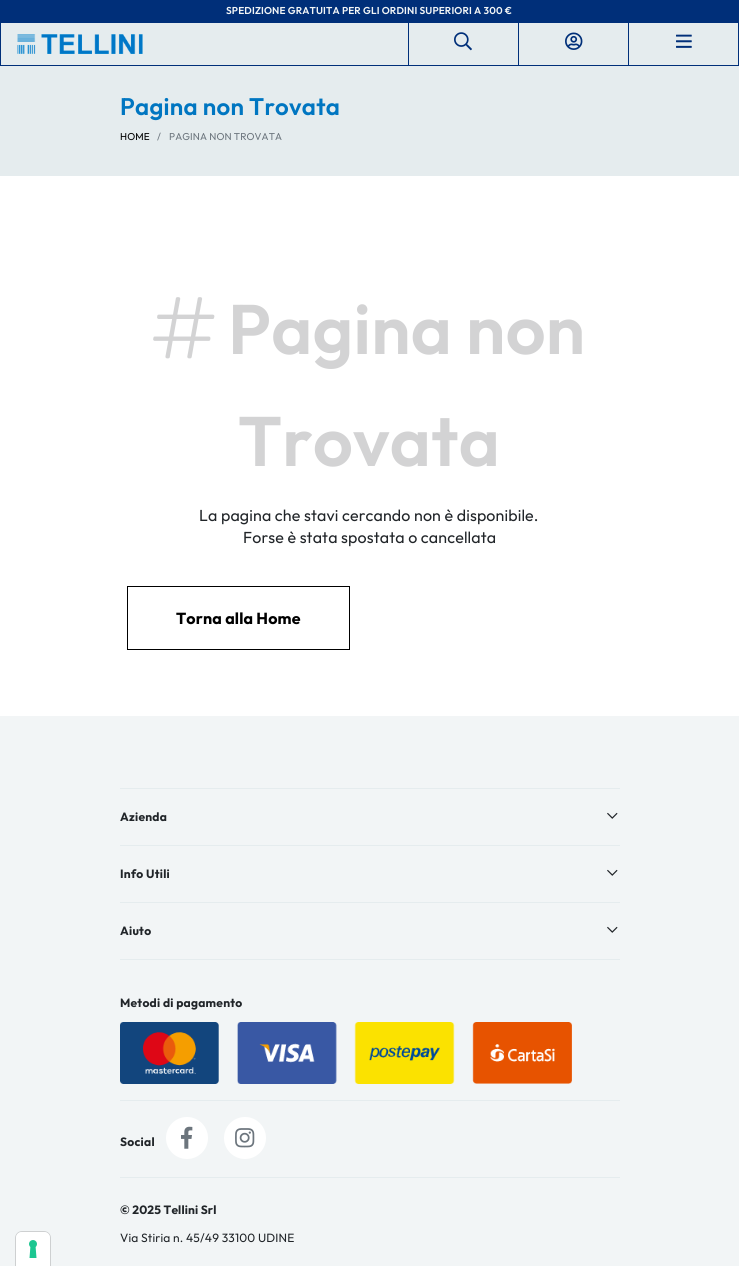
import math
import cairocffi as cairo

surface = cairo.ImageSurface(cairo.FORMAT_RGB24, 739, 1266)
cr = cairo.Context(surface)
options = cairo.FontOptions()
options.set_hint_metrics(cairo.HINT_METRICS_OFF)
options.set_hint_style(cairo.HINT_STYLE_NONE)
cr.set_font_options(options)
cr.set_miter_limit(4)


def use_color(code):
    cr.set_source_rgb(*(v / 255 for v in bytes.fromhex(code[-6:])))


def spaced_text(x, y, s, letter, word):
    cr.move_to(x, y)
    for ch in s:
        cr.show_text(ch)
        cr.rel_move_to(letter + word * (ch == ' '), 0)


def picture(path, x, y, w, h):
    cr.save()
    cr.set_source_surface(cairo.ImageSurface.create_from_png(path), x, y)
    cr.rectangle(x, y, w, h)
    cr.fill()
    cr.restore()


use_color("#ffffff")
cr.paint()
use_color("#002f79")
cr.rectangle(0, 0, 739, 22)
cr.fill()
cr.select_font_face("Outfit SemiBold")
cr.set_font_size(10)
use_color("#f2f5f6")
spaced_text(226, 14, "SPEDIZIONE GRATUITA PER GLI ORDINI SUPERIORI A 300 €", 0.15, 0)
use_color("#e5ecee")
cr.rectangle(1, 23, 737, 42)
cr.fill()
cr.rectangle(0.5, 22.5, 408, 43)
use_color("#002f79")
cr.set_line_width(1)
cr.stroke()
picture("img1.png", 17, 34, 126, 20)
cr.rectangle(409, 22, 330, 1)
cr.fill()
cr.rectangle(518, 22, 1, 44)
cr.fill()
cr.rectangle(409, 65, 110, 1)
cr.fill()
picture("img2.png", 454, 32, 18, 19)
cr.rectangle(628, 22, 1, 44)
cr.fill()
cr.rectangle(519, 65, 110, 1)
cr.fill()
picture("img3.png", 565, 32, 18, 18)
cr.rectangle(738, 22, 1, 44)
cr.fill()
cr.rectangle(629, 65, 110, 1)
cr.fill()
picture("img4.png", 676, 34, 16, 14)
use_color("#e5ecee")
cr.rectangle(0, 66, 739, 110)
cr.fill()
cr.set_font_size(24)
use_color("#0076c1")
spaced_text(120, 115, "Pagina non Trovata", 0.25, 0)
cr.select_font_face("Outfit")
cr.set_font_size(10)
use_color("#000000")
spaced_text(120, 140, "HOME", 0.1, 0)
use_color("#6c757d")
spaced_text(157, 140, "/", 0.1, 0)
spaced_text(169, 140, "PAGINA NON TROVATA", 0.1, 0)
picture("img5.png", 153, 297, 62, 62)
cr.select_font_face("Outfit SemiBold")
cr.set_font_size(70)
use_color("#d3d3d4")
spaced_text(228, 354, "Pagina non", 0.25, 0)
spaced_text(238, 466, "Trovata", 0.25, 0)
cr.select_font_face("Outfit")
cr.set_font_size(16)
use_color("#212529")
spaced_text(199, 521, "La pagina che stavi cercando non è disponibile.", 0.15, 0)
spaced_text(243, 543, "Forse è stata spostata o cancellata", 0.15, 0)
cr.rectangle(127.5, 586.5, 222, 63)
use_color("#000000")
cr.stroke()
cr.select_font_face("Outfit", cairo.FONT_SLANT_NORMAL, cairo.FONT_WEIGHT_BOLD)
spaced_text(176, 624, "Torna alla Home", 0.15, 0)
use_color("#f2f5f6")
cr.rectangle(0, 716, 739, 550)
cr.fill()
use_color("#e5ecee")
cr.rectangle(120, 788, 500, 1)
cr.fill()
cr.set_font_size(12)
use_color("#212529")
spaced_text(120, 821, "Azienda", 0.25, 0)
picture("img6.png", 607, 812, 11, 7)
use_color("#e5ecee")
cr.rectangle(120, 845, 500, 1)
cr.fill()
use_color("#212529")
spaced_text(120, 878, "Info Utili", 0.25, 0)
picture("img6.png", 607, 869, 11, 7)
use_color("#e5ecee")
cr.rectangle(120, 902, 500, 1)
cr.fill()
use_color("#212529")
spaced_text(120, 935, "Aiuto", 0.25, 0)
picture("img6.png", 607, 926, 11, 7)
use_color("#e5ecee")
cr.rectangle(120, 959, 500, 1)
cr.fill()
use_color("#212529")
spaced_text(120, 1007, "Metodi di pagamento", 0.25, 0)
picture("img7.png", 120, 1022, 452, 62)
use_color("#e5ecee")
cr.rectangle(120, 1100, 500, 1)
cr.fill()
use_color("#212529")
spaced_text(120, 1146, "Social", 0.25, 0)
use_color("#ffffff")
cr.new_path()
cr.arc(187, 1138, 21, 0, 2 * math.pi)
cr.fill()
picture("img8.png", 181, 1126, 12, 23)
cr.arc(245, 1138, 21, 0, 2 * math.pi)
cr.fill()
picture("img9.png", 235, 1128, 20, 20)
use_color("#e5ecee")
cr.rectangle(120, 1177, 500, 1)
cr.fill()
use_color("#212529")
spaced_text(120, 1214, "© 2025 Tellini Srl", 0.15, 0)
cr.select_font_face("Outfit")
spaced_text(120, 1242, "Via Stiria n. 45/49 33100 UDINE", 0.15, 0)
cr.new_path()
cr.move_to(22, 1231.5)
cr.line_to(44, 1231.5)
cr.curve_to(47.5, 1231.5, 50.5, 1234.5, 50.5, 1238)
cr.line_to(50.5, 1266.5)
cr.line_to(15.5, 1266.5)
cr.line_to(15.5, 1238)
cr.curve_to(15.5, 1234.5, 18.5, 1231.5, 22, 1231.5)
cr.close_path()
use_color("#ced0d1")
cr.stroke()
use_color("#ffffff")
cr.new_path()
cr.move_to(22, 1232)
cr.line_to(44, 1232)
cr.curve_to(47.5, 1232, 50, 1234.5, 50, 1238)
cr.line_to(50, 1266)
cr.line_to(16, 1266)
cr.line_to(16, 1238)
cr.curve_to(16, 1234.5, 18.5, 1232, 22, 1232)
cr.close_path()
cr.fill()
picture("img10.png", 29, 1240, 8, 18)
surface.write_to_png("result.png")
